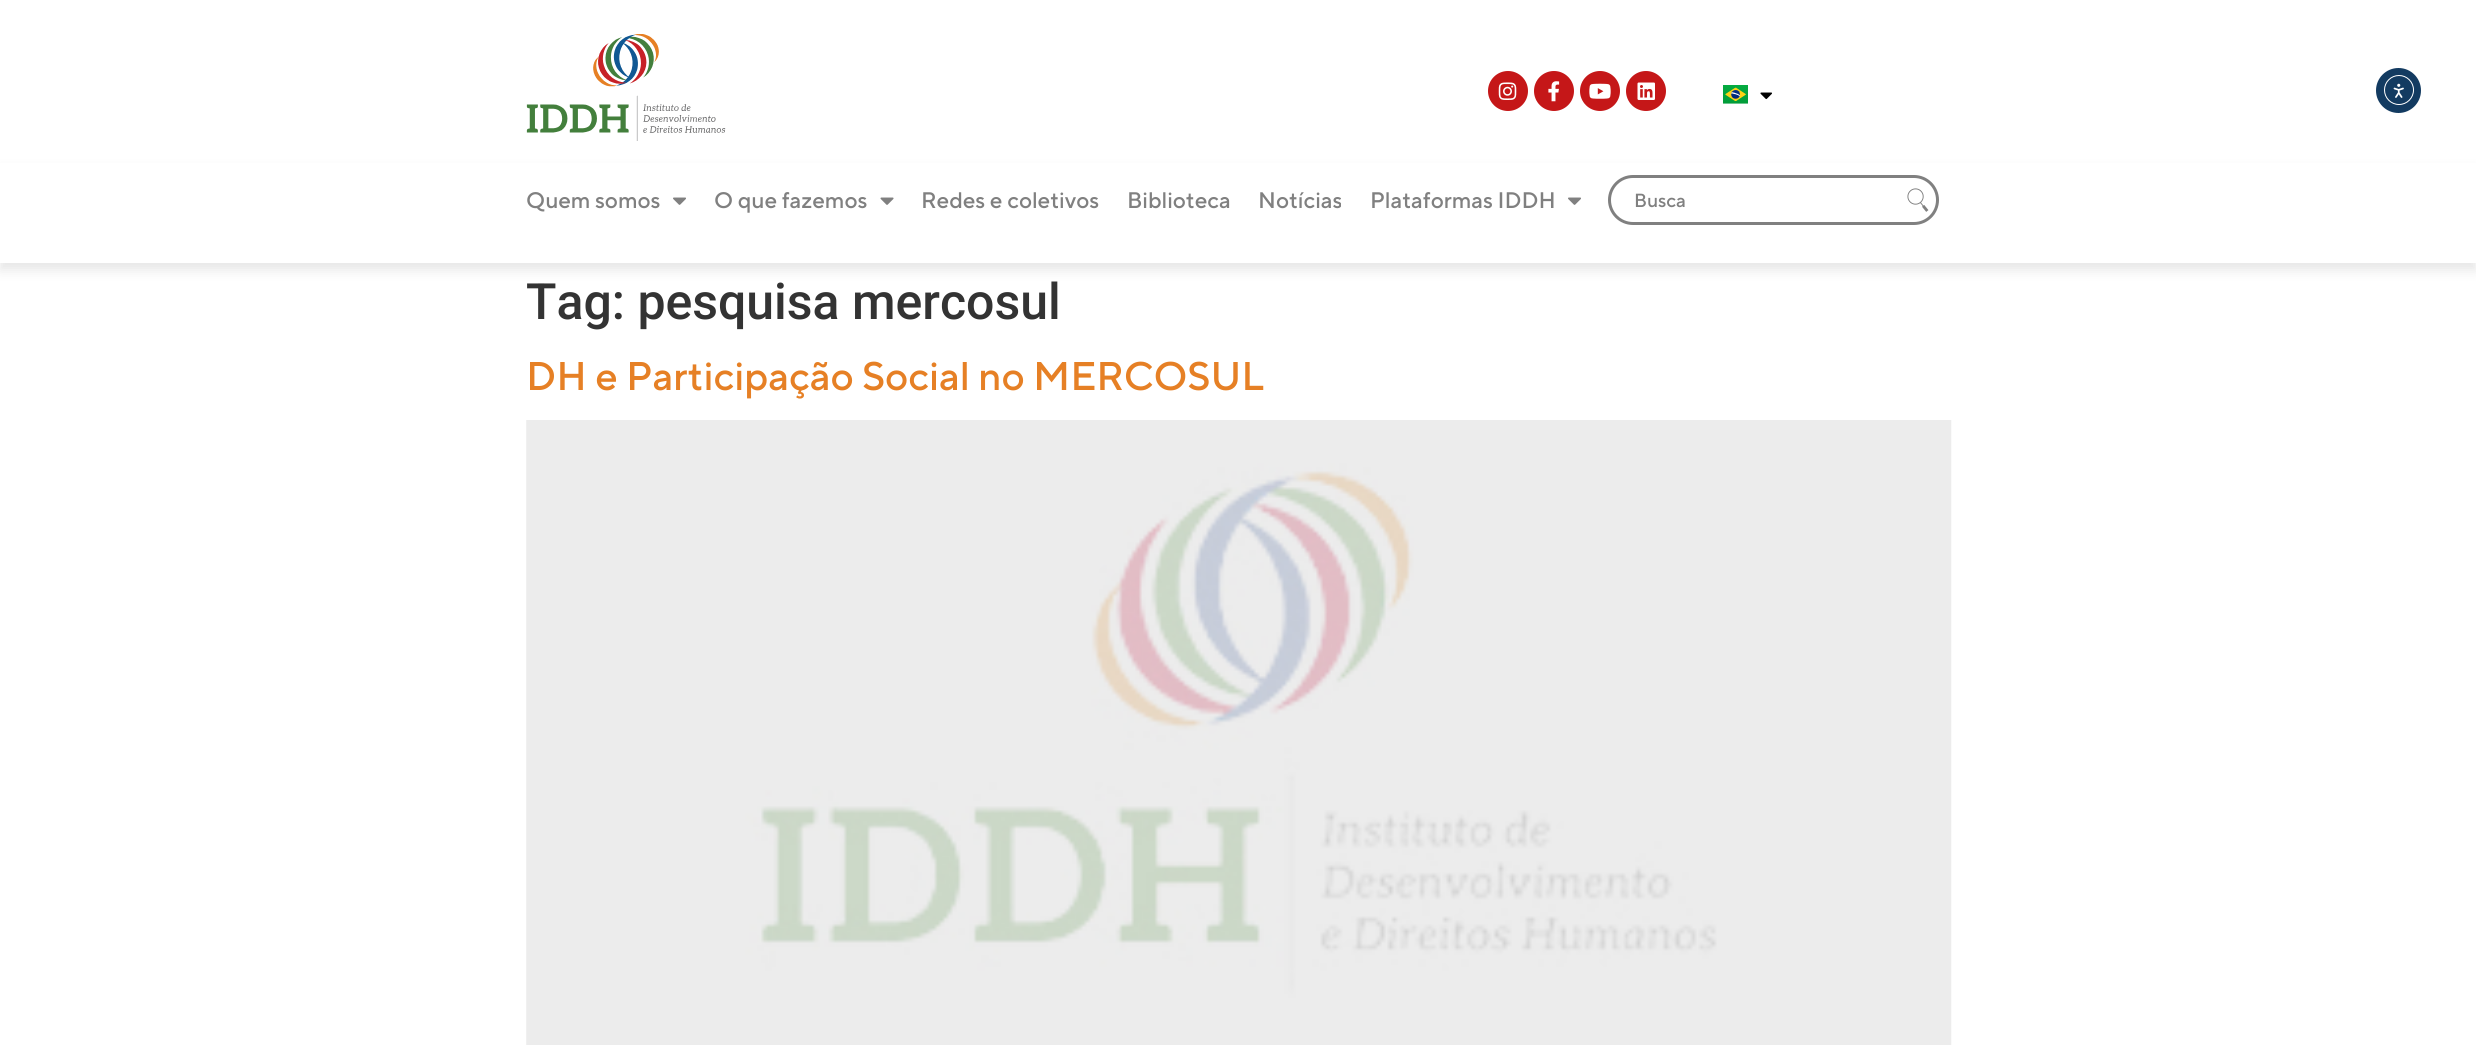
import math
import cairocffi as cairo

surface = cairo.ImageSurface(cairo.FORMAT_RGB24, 2476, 1062)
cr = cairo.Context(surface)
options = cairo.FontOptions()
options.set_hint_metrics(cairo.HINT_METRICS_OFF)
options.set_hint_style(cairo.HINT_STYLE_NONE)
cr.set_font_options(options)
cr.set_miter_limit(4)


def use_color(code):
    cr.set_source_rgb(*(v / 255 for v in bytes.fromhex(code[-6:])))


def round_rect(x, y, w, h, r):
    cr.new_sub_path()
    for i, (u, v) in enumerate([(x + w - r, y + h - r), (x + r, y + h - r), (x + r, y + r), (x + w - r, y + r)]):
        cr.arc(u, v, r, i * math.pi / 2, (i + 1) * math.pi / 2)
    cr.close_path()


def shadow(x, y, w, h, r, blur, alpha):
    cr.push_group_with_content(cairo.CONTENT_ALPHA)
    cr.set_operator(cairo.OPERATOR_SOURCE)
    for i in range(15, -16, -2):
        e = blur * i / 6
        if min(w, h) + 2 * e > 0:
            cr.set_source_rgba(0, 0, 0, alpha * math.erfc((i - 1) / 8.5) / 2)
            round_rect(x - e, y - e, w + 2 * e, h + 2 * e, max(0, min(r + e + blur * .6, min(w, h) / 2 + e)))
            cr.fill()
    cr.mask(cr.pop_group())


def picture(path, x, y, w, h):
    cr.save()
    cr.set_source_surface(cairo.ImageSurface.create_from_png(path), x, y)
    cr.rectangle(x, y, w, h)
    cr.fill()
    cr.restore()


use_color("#ffffff")
cr.paint()
use_color("#133b61")
cr.arc(2398.5, 90.5, 22.5, 0, 2 * math.pi)
cr.fill()
cr.arc(2399, 90, 14.5, 0, 2 * math.pi)
use_color("#ffffff")
cr.set_line_width(1)
cr.stroke()
picture("img1.png", 2393, 83, 11, 15)
picture("img2.png", 526, 34, 200, 107)
use_color("#c51718")
cr.arc(1508, 91, 20, 0, 2 * math.pi)
cr.fill()
picture("img3.png", 1498, 82, 19, 18)
cr.arc(1554, 91, 20, 0, 2 * math.pi)
cr.fill()
picture("img4.png", 1548, 81, 12, 21)
cr.arc(1600, 91, 20, 0, 2 * math.pi)
cr.fill()
picture("img5.png", 1589, 83, 22, 16)
cr.arc(1646, 91, 20, 0, 2 * math.pi)
cr.fill()
picture("img6.png", 1637, 82, 18, 18)
picture("img7.png", 1723, 85, 25, 19)
picture("img8.png", 1760, 92, 12, 8)
cr.save()
cr.set_fill_rule(cairo.FILL_RULE_EVEN_ODD)
cr.new_path()
cr.move_to(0, 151)
cr.line_to(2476, 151)
cr.line_to(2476, 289)
cr.line_to(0, 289)
cr.close_path()
cr.move_to(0, 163)
cr.line_to(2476, 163)
cr.line_to(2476, 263)
cr.line_to(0, 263)
cr.close_path()
cr.clip()
use_color("#000000")
shadow(0, 170, 2476, 100, 0, 6, 0.1)
cr.restore()
cr.select_font_face("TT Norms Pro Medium")
cr.set_font_size(22.5)
use_color("#808080")
cr.move_to(526, 208)
cr.show_text("Quem somos")
picture("img9.png", 673, 197, 13, 8)
cr.move_to(714, 208)
cr.show_text("O que fazemos")
picture("img10.png", 880, 197, 14, 8)
cr.move_to(921, 208)
cr.show_text("Redes e coletivos")
cr.move_to(1127, 208)
cr.show_text("Biblioteca")
cr.move_to(1258, 208)
cr.show_text("Notícias")
cr.move_to(1370, 208)
cr.show_text("Plataformas IDDH")
picture("img9.png", 1568, 197, 13, 8)
round_rect(1609.5, 176.5, 328, 47, 23.5)
cr.set_line_width(3)
cr.stroke()
cr.set_font_size(19)
cr.move_to(1634, 207)
cr.show_text("Busca")
picture("img11.png", 1907, 188, 22, 24)
cr.select_font_face("Roboto Medium")
cr.set_font_size(50)
use_color("#333333")
cr.move_to(526, 319)
cr.show_text("Tag: pesquisa mercosul")
cr.select_font_face("TT Norms Pro Medium")
cr.set_font_size(40)
use_color("#e68025")
cr.move_to(526, 390)
cr.show_text("DH e Participação Social no MERCOSUL")
picture("img12.png", 526, 420, 1426, 625)
surface.write_to_png("result.png")
